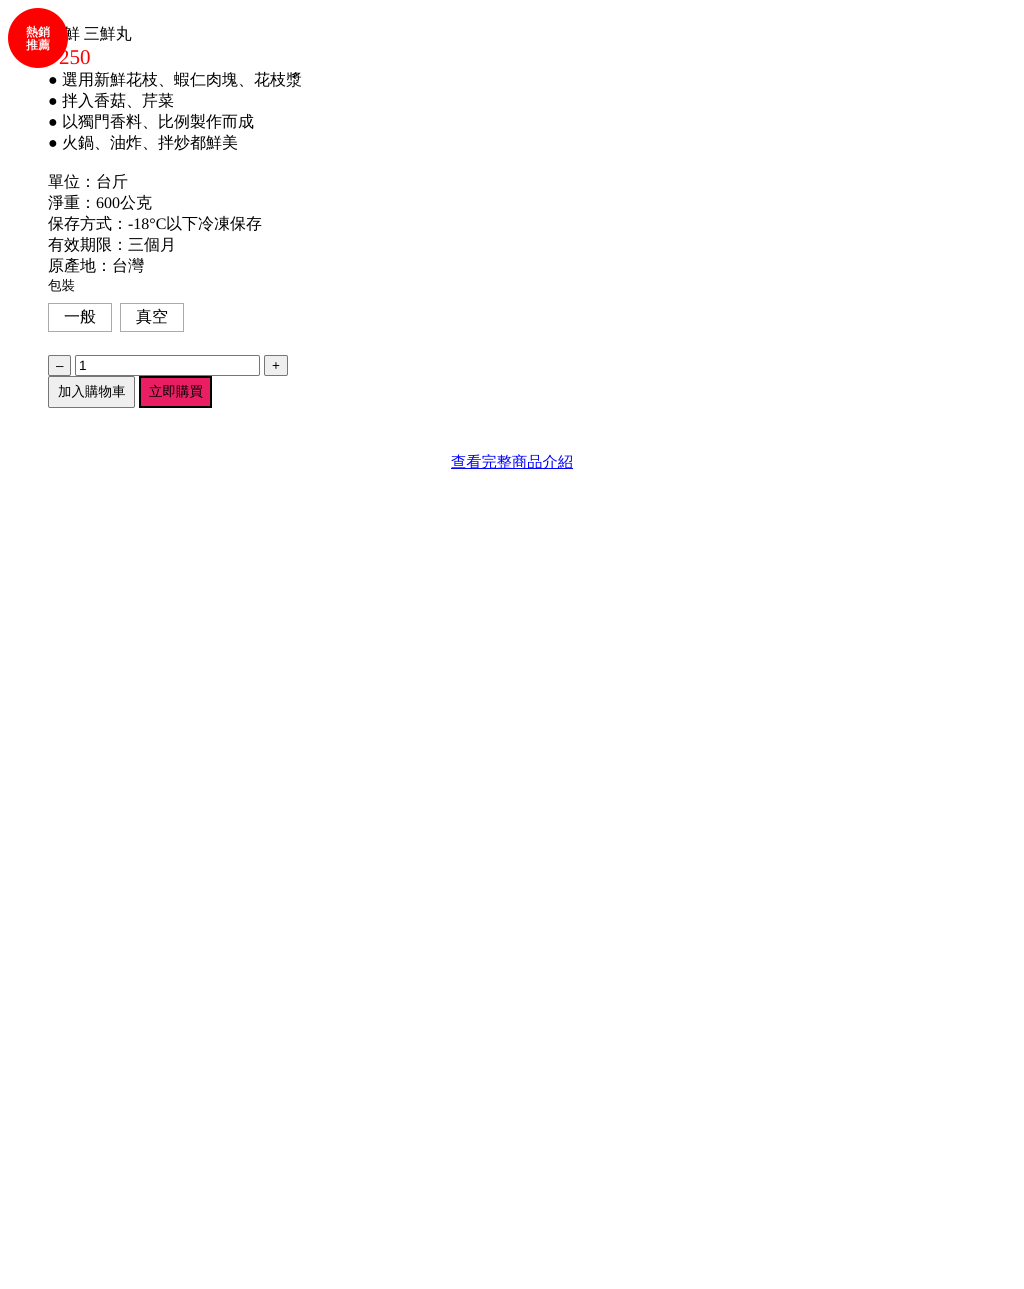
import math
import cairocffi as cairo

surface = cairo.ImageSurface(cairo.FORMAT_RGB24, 1024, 1289)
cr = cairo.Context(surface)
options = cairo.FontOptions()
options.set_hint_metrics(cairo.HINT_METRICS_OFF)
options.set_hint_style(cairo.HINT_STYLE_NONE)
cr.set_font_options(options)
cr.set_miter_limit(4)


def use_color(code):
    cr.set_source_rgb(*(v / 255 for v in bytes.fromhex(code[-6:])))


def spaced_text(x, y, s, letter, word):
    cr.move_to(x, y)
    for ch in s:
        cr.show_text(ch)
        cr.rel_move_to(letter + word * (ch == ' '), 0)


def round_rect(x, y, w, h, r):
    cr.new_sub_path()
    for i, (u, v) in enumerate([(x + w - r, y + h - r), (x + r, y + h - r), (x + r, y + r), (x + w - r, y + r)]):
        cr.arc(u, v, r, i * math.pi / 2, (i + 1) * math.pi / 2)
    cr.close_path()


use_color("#ffffff")
cr.paint()
cr.select_font_face("WenQuanYi Zen Hei Medium")
cr.set_font_size(16)
use_color("#000000")
spaced_text(64, 39, "鮮 三鮮丸", 0, -1)
use_color("#ff0000")
cr.new_path()
cr.arc(38, 38, 30, 0, 2 * math.pi)
cr.fill()
cr.select_font_face("WenQuanYi Zen Hei", cairo.FONT_SLANT_NORMAL, cairo.FONT_WEIGHT_BOLD)
cr.set_font_size(12)
use_color("#ffffff")
cr.move_to(26, 36)
cr.show_text("熱銷")
cr.move_to(26, 49)
cr.show_text("推薦")
cr.select_font_face("Liberation Serif")
cr.set_font_size(21)
use_color("#ff0000")
cr.move_to(59, 64)
cr.show_text("250")
cr.set_font_size(16)
use_color("#000000")
cr.move_to(48, 85)
cr.show_text("●")
cr.select_font_face("WenQuanYi Zen Hei Medium")
cr.move_to(62, 85)
cr.show_text("選用新鮮花枝、蝦仁肉塊、花枝漿")
cr.select_font_face("Liberation Serif")
cr.move_to(48, 106)
cr.show_text("●")
cr.select_font_face("WenQuanYi Zen Hei Medium")
cr.move_to(62, 106)
cr.show_text("拌入香菇、芹菜")
cr.select_font_face("Liberation Serif")
cr.move_to(48, 127)
cr.show_text("●")
cr.select_font_face("WenQuanYi Zen Hei Medium")
cr.move_to(62, 127)
cr.show_text("以獨門香料、比例製作而成")
cr.select_font_face("Liberation Serif")
cr.move_to(48, 148)
cr.show_text("●")
cr.select_font_face("WenQuanYi Zen Hei Medium")
cr.move_to(62, 148)
cr.show_text("火鍋、油炸、拌炒都鮮美")
cr.move_to(48, 187)
cr.show_text("單位：台斤")
cr.move_to(48, 208)
cr.show_text("淨重：")
cr.select_font_face("Liberation Serif")
cr.move_to(96, 208)
cr.show_text("600")
cr.select_font_face("WenQuanYi Zen Hei Medium")
cr.move_to(120, 208)
cr.show_text("公克")
cr.move_to(48, 229)
cr.show_text("保存方式：")
cr.select_font_face("Liberation Serif")
cr.move_to(128, 229)
cr.show_text("-18°C")
cr.select_font_face("WenQuanYi Zen Hei Medium")
cr.move_to(166, 229)
cr.show_text("以下冷凍保存")
cr.move_to(48, 250)
cr.show_text("有效期限：三個月")
cr.move_to(48, 271)
cr.show_text("原產地：台灣")
cr.set_font_size(13.5)
cr.move_to(48, 290)
cr.show_text("包裝")
cr.rectangle(48.5, 303.5, 63, 28)
use_color("#aaaaaa")
cr.set_line_width(1)
cr.stroke()
cr.set_font_size(16)
use_color("#000000")
cr.move_to(64, 322)
cr.show_text("一般")
cr.rectangle(120.5, 303.5, 63, 28)
use_color("#aaaaaa")
cr.stroke()
use_color("#000000")
cr.move_to(136, 322)
cr.show_text("真空")
use_color("#efefef")
round_rect(48.5, 355.5, 22, 20, 1.5)
cr.fill_preserve()
use_color("#767676")
cr.stroke()
cr.select_font_face("Liberation Sans")
cr.set_font_size(13.5)
use_color("#000000")
cr.move_to(56, 370)
cr.show_text("–")
round_rect(75.5, 355.5, 184, 20, 1.5)
use_color("#767676")
cr.stroke()
use_color("#000000")
cr.move_to(79, 370)
cr.show_text("1")
use_color("#efefef")
round_rect(264.5, 355.5, 23, 20, 1.5)
cr.fill_preserve()
use_color("#767676")
cr.stroke()
use_color("#000000")
cr.move_to(272, 370)
cr.show_text("+")
use_color("#efefef")
round_rect(48.5, 376.5, 86, 31, 1.5)
cr.fill_preserve()
use_color("#767676")
cr.stroke()
cr.select_font_face("WenQuanYi Zen Hei Medium")
use_color("#000000")
cr.move_to(58, 396)
cr.show_text("加入購物車")
use_color("#e91e63")
cr.rectangle(140, 377, 71, 30)
cr.fill_preserve()
use_color("#000000")
cr.set_line_width(2)
cr.stroke()
cr.move_to(149, 396)
cr.show_text("立即購買")
use_color("#0000ff")
cr.rectangle(451, 468, 122, 1)
cr.fill()
cr.set_font_size(15.25)
cr.move_to(451, 467)
cr.show_text("查看完整商品介紹")
surface.write_to_png("result.png")
